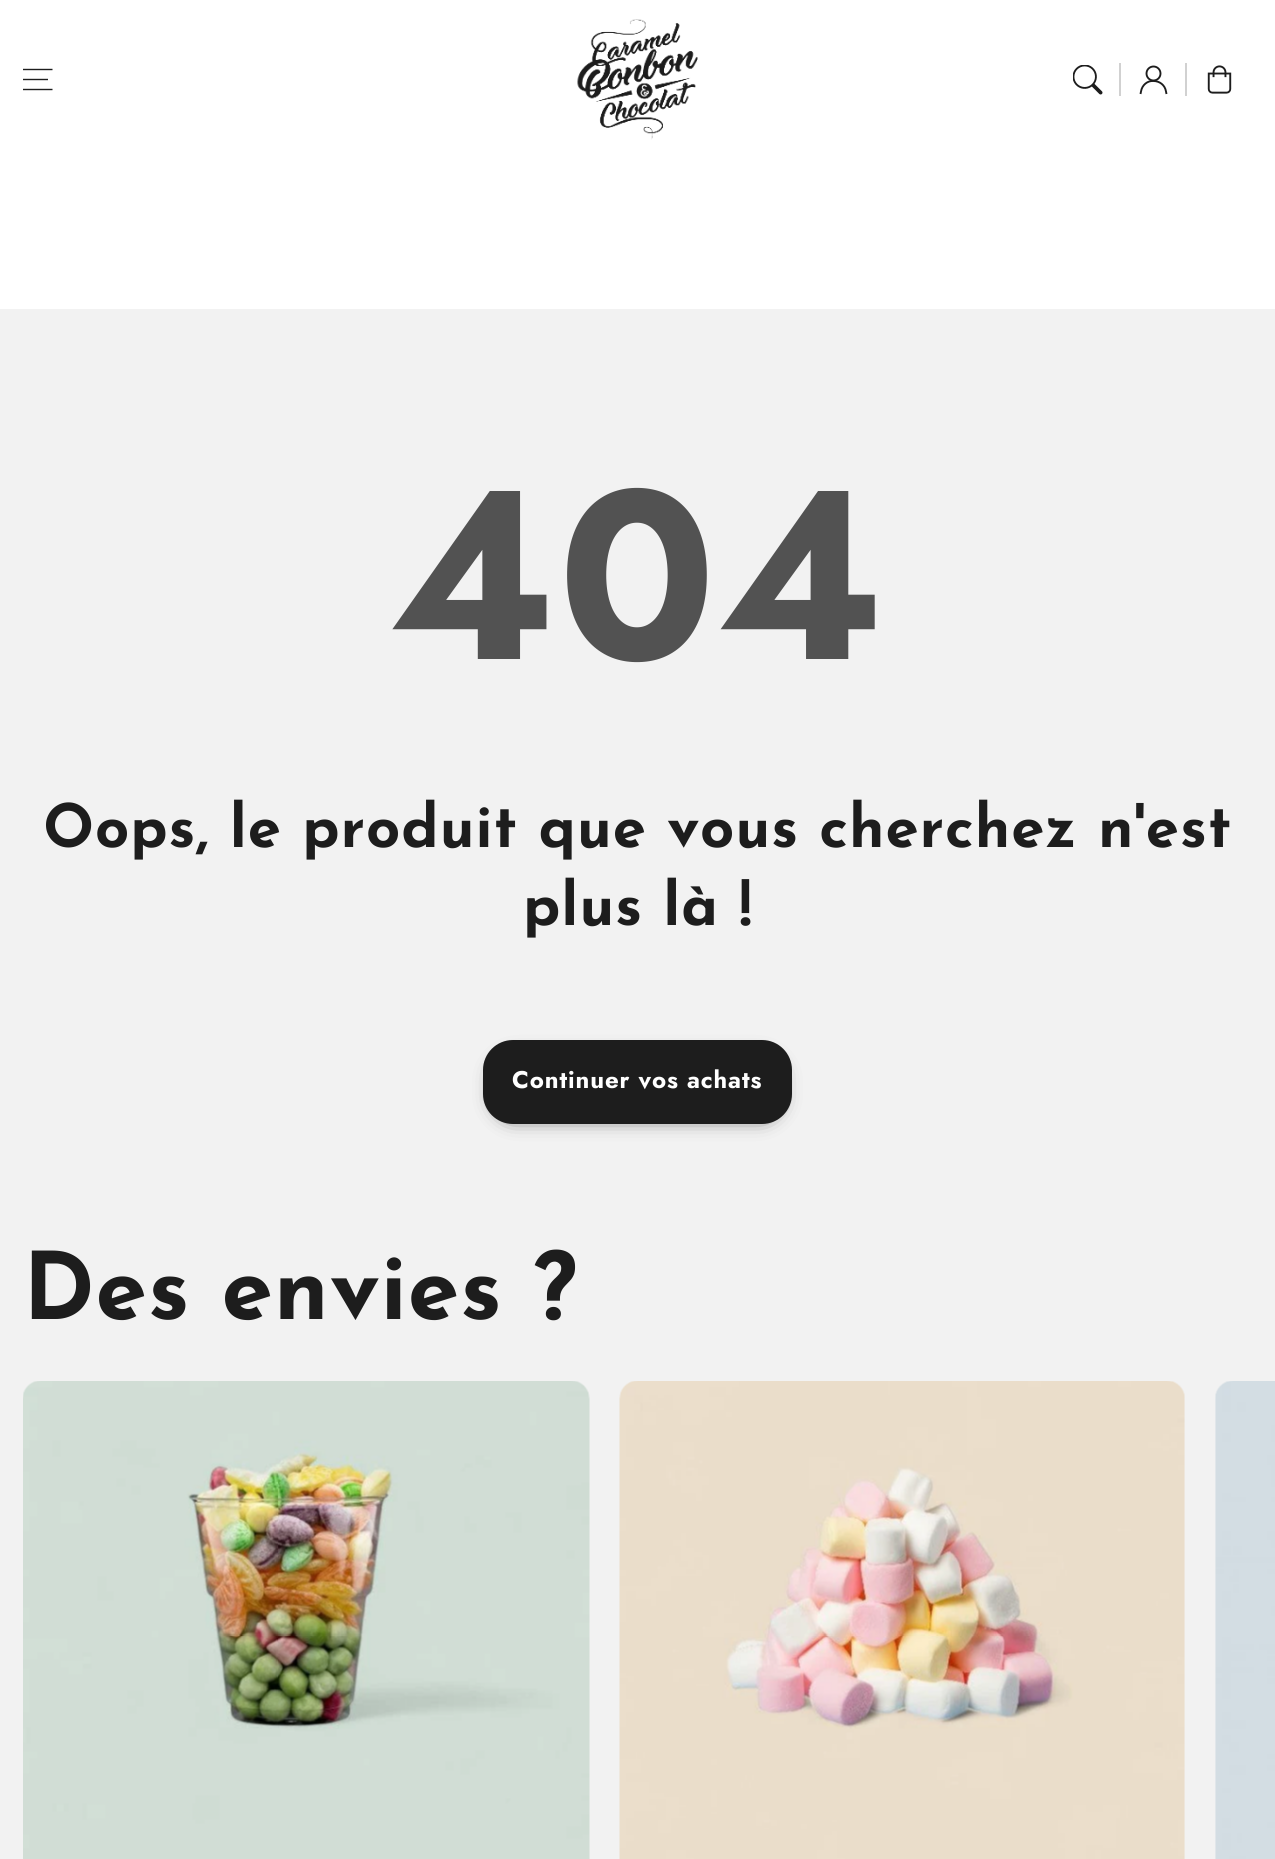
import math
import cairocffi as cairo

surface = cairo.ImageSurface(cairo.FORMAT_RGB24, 1275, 1859)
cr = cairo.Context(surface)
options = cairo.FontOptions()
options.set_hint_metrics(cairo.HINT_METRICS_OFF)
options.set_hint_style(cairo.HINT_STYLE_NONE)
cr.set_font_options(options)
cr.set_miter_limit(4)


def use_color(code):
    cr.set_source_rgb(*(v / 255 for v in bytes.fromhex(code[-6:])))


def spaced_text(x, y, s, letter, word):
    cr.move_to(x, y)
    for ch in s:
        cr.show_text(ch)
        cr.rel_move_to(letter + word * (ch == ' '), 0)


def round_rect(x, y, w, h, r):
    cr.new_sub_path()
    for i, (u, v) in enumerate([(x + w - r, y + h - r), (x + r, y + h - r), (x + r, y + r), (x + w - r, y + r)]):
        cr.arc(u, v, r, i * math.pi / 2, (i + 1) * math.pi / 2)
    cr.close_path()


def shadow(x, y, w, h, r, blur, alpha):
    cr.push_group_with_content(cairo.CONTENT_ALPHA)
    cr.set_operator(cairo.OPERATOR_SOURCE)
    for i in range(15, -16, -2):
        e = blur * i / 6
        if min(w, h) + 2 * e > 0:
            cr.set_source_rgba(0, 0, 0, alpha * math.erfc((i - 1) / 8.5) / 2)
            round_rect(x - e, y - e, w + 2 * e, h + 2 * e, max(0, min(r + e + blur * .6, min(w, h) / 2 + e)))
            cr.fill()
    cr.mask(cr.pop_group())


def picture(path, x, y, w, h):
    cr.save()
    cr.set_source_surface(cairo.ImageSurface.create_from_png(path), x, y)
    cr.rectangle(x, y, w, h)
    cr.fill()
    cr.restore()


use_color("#ffffff")
cr.paint()
cr.save()
cr.rectangle(23, 65, 30, 30)
cr.clip()
cr.new_path()
cr.move_to(22.5, 89.5)
cr.line_to(52.5, 89.5)
cr.move_to(22.5, 79.5)
cr.line_to(48, 79.5)
cr.move_to(22.5, 69.5)
cr.line_to(52.5, 69.5)
use_color("#1d1d1d")
cr.set_line_width(1.4)
cr.stroke()
cr.restore()
picture("img1.png", 577, 19, 121, 121)
picture("img2.png", 1073, 65, 30, 30)
use_color("#d1d1d1")
cr.rectangle(1119, 63, 2, 33)
cr.fill()
cr.arc(1153.5, 73.5, 7, 0, 2 * math.pi)
use_color("#1d1d1d")
cr.set_line_width(1.9)
cr.stroke()
cr.new_path()
cr.move_to(1140.5, 94)
cr.line_to(1141, 91.5)
cr.curve_to(1142, 85, 1147.5, 80.5, 1153.5, 81)
cr.curve_to(1159.5, 81, 1165, 85, 1166, 91.5)
cr.line_to(1166.5, 94)
cr.stroke()
use_color("#d1d1d1")
cr.rectangle(1185, 63, 2, 33)
cr.fill()
picture("img3.png", 1207, 65, 25, 29)
use_color("#f2f2f2")
cr.rectangle(0, 309, 1275, 1550)
cr.fill()
cr.select_font_face("Jost", cairo.FONT_SLANT_NORMAL, cairo.FONT_WEIGHT_BOLD)
cr.set_font_size(240)
use_color("#525252")
spaced_text(389, 659, "404", 0.9, 0)
cr.select_font_face("Josefin Sans", cairo.FONT_SLANT_NORMAL, cairo.FONT_WEIGHT_BOLD)
cr.set_font_size(60)
use_color("#1d1d1d")
spaced_text(43, 847, "Oops, le produit que vous cherchez n'est", 0.9, 0)
spaced_text(523, 925, "plus là !", 0.9, 0)
use_color("#000000")
shadow(498, 1061, 279, 54, 15, 10.5, 1)
use_color("#1d1d1d")
round_rect(483, 1040, 309, 84, 30)
cr.fill()
cr.select_font_face("Jost", cairo.FONT_SLANT_NORMAL, cairo.FONT_WEIGHT_BOLD)
cr.set_font_size(24)
use_color("#ffffff")
spaced_text(512, 1088, "Continuer vos achats", 0.9, 0)
cr.select_font_face("Josefin Sans", cairo.FONT_SLANT_NORMAL, cairo.FONT_WEIGHT_BOLD)
cr.set_font_size(93)
use_color("#1d1d1d")
spaced_text(23, 1319, "Des envies ?", 0.9, 0)
picture("img4.png", 23, 1381, 567, 478)
picture("img5.png", 619, 1381, 566, 478)
picture("img6.png", 1215, 1381, 60, 478)
surface.write_to_png("result.png")
